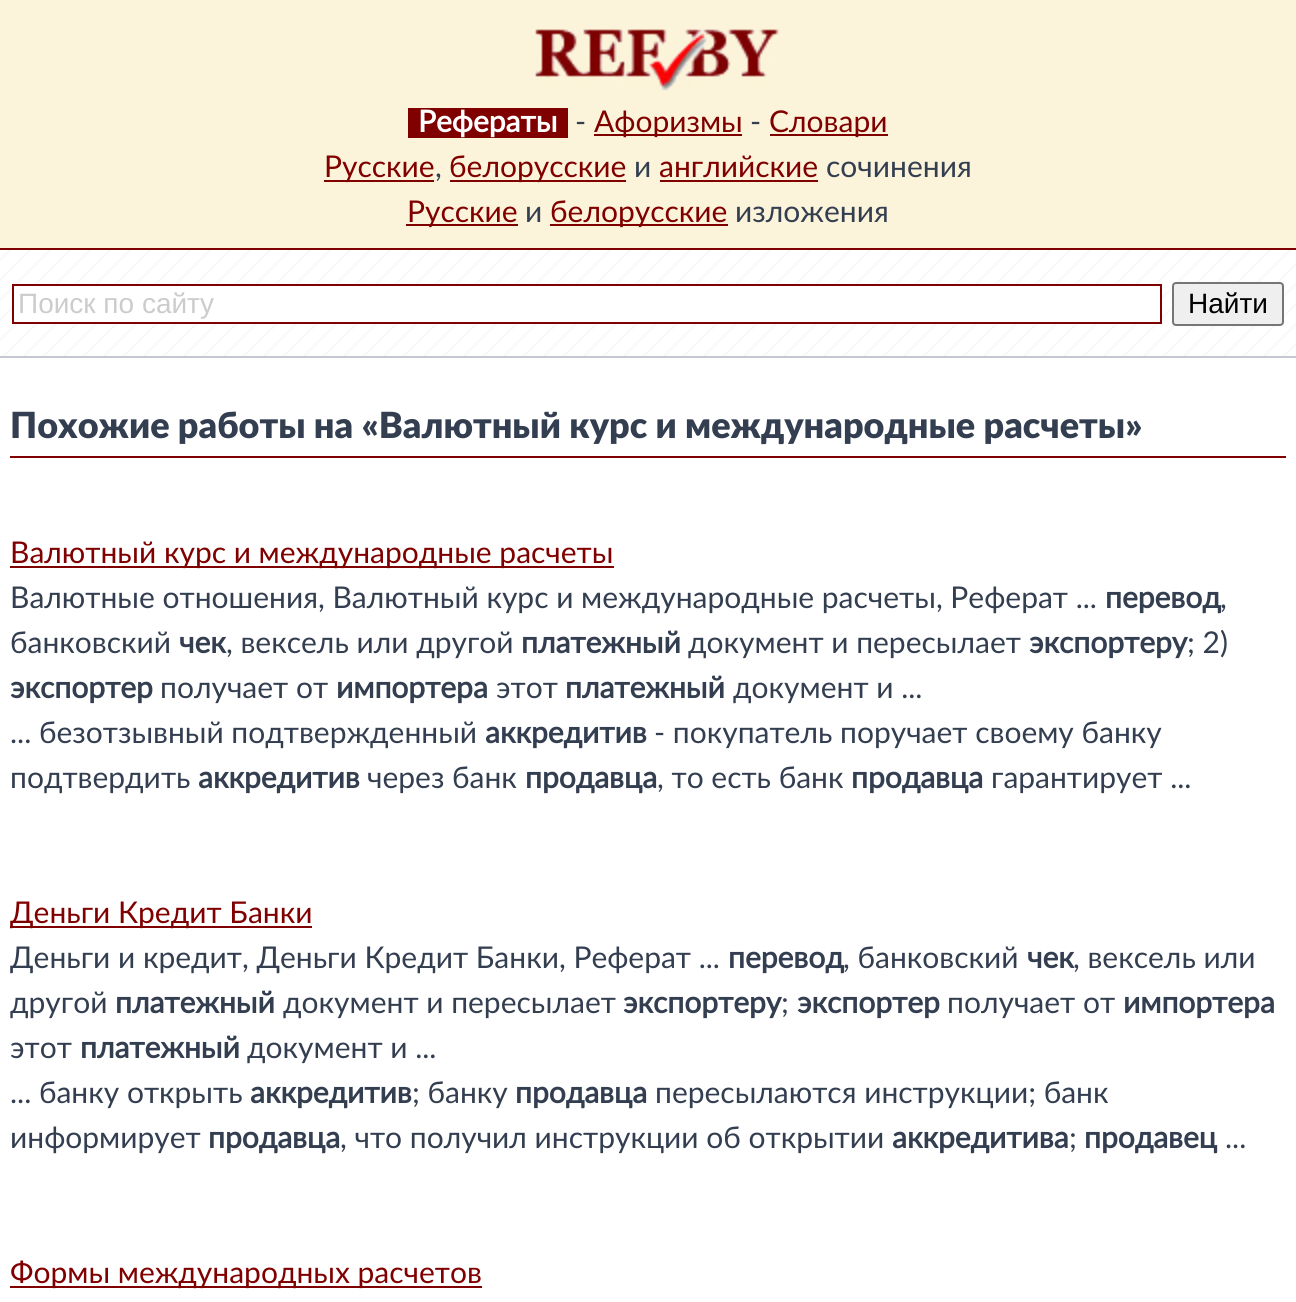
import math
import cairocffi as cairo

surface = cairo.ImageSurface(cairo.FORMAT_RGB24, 1296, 1302)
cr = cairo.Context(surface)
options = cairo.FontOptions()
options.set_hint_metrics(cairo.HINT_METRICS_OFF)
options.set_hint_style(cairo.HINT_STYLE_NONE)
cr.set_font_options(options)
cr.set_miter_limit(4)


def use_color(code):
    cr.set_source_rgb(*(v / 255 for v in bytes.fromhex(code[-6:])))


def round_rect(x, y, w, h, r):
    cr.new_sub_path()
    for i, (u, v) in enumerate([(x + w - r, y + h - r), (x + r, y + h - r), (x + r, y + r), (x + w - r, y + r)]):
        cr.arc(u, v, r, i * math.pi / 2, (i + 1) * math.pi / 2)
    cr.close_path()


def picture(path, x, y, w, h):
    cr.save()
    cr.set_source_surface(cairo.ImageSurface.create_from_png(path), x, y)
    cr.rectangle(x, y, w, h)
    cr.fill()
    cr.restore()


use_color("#ffffff")
cr.paint()
picture("img1.png", 0, 250, 1296, 106)
use_color("#fcf4da")
cr.rectangle(0, 0, 1296, 248)
cr.fill()
use_color("#800000")
cr.rectangle(0, 248, 1296, 2)
cr.fill()
picture("img2.png", 535, 29, 244, 62)
cr.rectangle(408, 108, 160, 30)
cr.fill()
cr.select_font_face("Lato", cairo.FONT_SLANT_NORMAL, cairo.FONT_WEIGHT_BOLD)
cr.set_font_size(30)
use_color("#ffffff")
cr.move_to(418, 132)
cr.show_text("Рефераты")
cr.select_font_face("Lato")
use_color("#333e50")
cr.move_to(575, 132)
cr.show_text("-")
use_color("#800000")
cr.rectangle(594, 134, 148, 2)
cr.fill()
cr.move_to(594, 132)
cr.show_text("Афоризмы")
use_color("#333e50")
cr.move_to(750, 132)
cr.show_text("-")
use_color("#800000")
cr.rectangle(770, 134, 118, 2)
cr.fill()
cr.move_to(769, 132)
cr.show_text("Словари")
cr.rectangle(324, 180, 110, 2)
cr.fill()
cr.move_to(324, 177)
cr.show_text("Русские")
use_color("#333e50")
cr.move_to(435, 177)
cr.show_text(",")
use_color("#800000")
cr.rectangle(450, 180, 176, 2)
cr.fill()
cr.move_to(449, 177)
cr.show_text("белорусские")
use_color("#333e50")
cr.move_to(634, 177)
cr.show_text("и")
use_color("#800000")
cr.move_to(659, 177)
cr.show_text("английские")
cr.rectangle(660, 180, 158, 2)
cr.fill()
use_color("#333e50")
cr.move_to(826, 177)
cr.show_text("сочинения")
use_color("#800000")
cr.rectangle(406, 224, 112, 2)
cr.fill()
cr.move_to(407, 222)
cr.show_text("Русские")
use_color("#333e50")
cr.move_to(525, 222)
cr.show_text("и")
use_color("#800000")
cr.rectangle(550, 224, 178, 2)
cr.fill()
cr.move_to(550, 222)
cr.show_text("белорусские")
use_color("#333e50")
cr.move_to(735, 222)
cr.show_text("изложения")
use_color("#ffffff")
cr.rectangle(13, 285, 1148, 38)
cr.fill_preserve()
use_color("#800000")
cr.stroke()
cr.select_font_face("Liberation Sans")
cr.set_font_size(28)
use_color("#cccccc")
cr.move_to(18, 313)
cr.show_text("Поиск по сайту")
use_color("#efefef")
round_rect(1173, 283, 110, 42, 3)
cr.fill_preserve()
use_color("#767676")
cr.stroke()
use_color("#000000")
cr.move_to(1188, 313)
cr.show_text("Найти")
use_color("#c5c8d0")
cr.rectangle(0, 356, 1296, 2)
cr.fill()
cr.select_font_face("Lato Black")
cr.set_font_size(36)
use_color("#333e50")
cr.move_to(10, 438)
cr.show_text("Похожие работы на «Валютный курс и международные расчеты»")
use_color("#800000")
cr.rectangle(10, 456, 1276, 2)
cr.fill()
cr.rectangle(10, 566, 604, 2)
cr.fill()
cr.select_font_face("Lato")
cr.set_font_size(30)
cr.move_to(10, 563)
cr.show_text("Валютный курс и международные расчеты")
use_color("#333e50")
cr.move_to(10, 608)
cr.show_text("Валютные отношения, Валютный курс и международные расчеты, Реферат ...")
cr.select_font_face("Lato", cairo.FONT_SLANT_NORMAL, cairo.FONT_WEIGHT_BOLD)
cr.move_to(1105, 608)
cr.show_text("перевод")
cr.select_font_face("Lato")
cr.move_to(1220, 608)
cr.show_text(",")
cr.move_to(10, 653)
cr.show_text("банковский")
cr.select_font_face("Lato", cairo.FONT_SLANT_NORMAL, cairo.FONT_WEIGHT_BOLD)
cr.move_to(179, 653)
cr.show_text("чек")
cr.select_font_face("Lato")
cr.move_to(226, 653)
cr.show_text(", вексель или другой")
cr.select_font_face("Lato", cairo.FONT_SLANT_NORMAL, cairo.FONT_WEIGHT_BOLD)
cr.move_to(521, 653)
cr.show_text("платежный")
cr.select_font_face("Lato")
cr.move_to(688, 653)
cr.show_text("документ и пересылает")
cr.select_font_face("Lato", cairo.FONT_SLANT_NORMAL, cairo.FONT_WEIGHT_BOLD)
cr.move_to(1029, 653)
cr.show_text("экспортеру")
cr.select_font_face("Lato")
cr.move_to(1187, 653)
cr.show_text("; 2)")
cr.select_font_face("Lato", cairo.FONT_SLANT_NORMAL, cairo.FONT_WEIGHT_BOLD)
cr.move_to(10, 698)
cr.show_text("экспортер")
cr.select_font_face("Lato")
cr.move_to(160, 698)
cr.show_text("получает от")
cr.select_font_face("Lato", cairo.FONT_SLANT_NORMAL, cairo.FONT_WEIGHT_BOLD)
cr.move_to(336, 698)
cr.show_text("импортера")
cr.select_font_face("Lato")
cr.move_to(496, 698)
cr.show_text("этот")
cr.select_font_face("Lato", cairo.FONT_SLANT_NORMAL, cairo.FONT_WEIGHT_BOLD)
cr.move_to(565, 698)
cr.show_text("платежный")
cr.select_font_face("Lato")
cr.move_to(733, 698)
cr.show_text("документ и ...")
cr.move_to(10, 743)
cr.show_text("... безотзывный подтвержденный")
cr.select_font_face("Lato", cairo.FONT_SLANT_NORMAL, cairo.FONT_WEIGHT_BOLD)
cr.move_to(485, 743)
cr.show_text("аккредитив")
cr.select_font_face("Lato")
cr.move_to(654, 743)
cr.show_text("- покупатель поручает своему банку")
cr.move_to(10, 788)
cr.show_text("подтвердить")
cr.select_font_face("Lato", cairo.FONT_SLANT_NORMAL, cairo.FONT_WEIGHT_BOLD)
cr.move_to(198, 788)
cr.show_text("аккредитив")
cr.select_font_face("Lato")
cr.move_to(367, 788)
cr.show_text("через банк")
cr.select_font_face("Lato", cairo.FONT_SLANT_NORMAL, cairo.FONT_WEIGHT_BOLD)
cr.move_to(525, 788)
cr.show_text("продавца")
cr.select_font_face("Lato")
cr.move_to(657, 788)
cr.show_text(", то есть банк")
cr.select_font_face("Lato", cairo.FONT_SLANT_NORMAL, cairo.FONT_WEIGHT_BOLD)
cr.move_to(851, 788)
cr.show_text("продавца")
cr.select_font_face("Lato")
cr.move_to(991, 788)
cr.show_text("гарантирует ...")
use_color("#800000")
cr.rectangle(10, 926, 302, 2)
cr.fill()
cr.move_to(10, 923)
cr.show_text("Деньги Кредит Банки")
use_color("#333e50")
cr.move_to(10, 968)
cr.show_text("Деньги и кредит, Деньги Кредит Банки, Реферат ...")
cr.select_font_face("Lato", cairo.FONT_SLANT_NORMAL, cairo.FONT_WEIGHT_BOLD)
cr.move_to(728, 968)
cr.show_text("перевод")
cr.select_font_face("Lato")
cr.move_to(843, 968)
cr.show_text(", банковский")
cr.select_font_face("Lato", cairo.FONT_SLANT_NORMAL, cairo.FONT_WEIGHT_BOLD)
cr.move_to(1027, 968)
cr.show_text("чек")
cr.select_font_face("Lato")
cr.move_to(1073, 968)
cr.show_text(", вексель или")
cr.move_to(10, 1013)
cr.show_text("другой")
cr.select_font_face("Lato", cairo.FONT_SLANT_NORMAL, cairo.FONT_WEIGHT_BOLD)
cr.move_to(115, 1013)
cr.show_text("платежный")
cr.select_font_face("Lato")
cr.move_to(283, 1013)
cr.show_text("документ и пересылает")
cr.select_font_face("Lato", cairo.FONT_SLANT_NORMAL, cairo.FONT_WEIGHT_BOLD)
cr.move_to(623, 1013)
cr.show_text("экспортеру")
cr.select_font_face("Lato")
cr.move_to(781, 1013)
cr.show_text(";")
cr.select_font_face("Lato", cairo.FONT_SLANT_NORMAL, cairo.FONT_WEIGHT_BOLD)
cr.move_to(797, 1013)
cr.show_text("экспортер")
cr.select_font_face("Lato")
cr.move_to(947, 1013)
cr.show_text("получает от")
cr.select_font_face("Lato", cairo.FONT_SLANT_NORMAL, cairo.FONT_WEIGHT_BOLD)
cr.move_to(1123, 1013)
cr.show_text("импортера")
cr.select_font_face("Lato")
cr.move_to(10, 1058)
cr.show_text("этот")
cr.select_font_face("Lato", cairo.FONT_SLANT_NORMAL, cairo.FONT_WEIGHT_BOLD)
cr.move_to(80, 1058)
cr.show_text("платежный")
cr.select_font_face("Lato")
cr.move_to(247, 1058)
cr.show_text("документ и ...")
cr.move_to(10, 1103)
cr.show_text("... банку открыть")
cr.select_font_face("Lato", cairo.FONT_SLANT_NORMAL, cairo.FONT_WEIGHT_BOLD)
cr.move_to(250, 1103)
cr.show_text("аккредитив")
cr.select_font_face("Lato")
cr.move_to(412, 1103)
cr.show_text("; банку")
cr.select_font_face("Lato", cairo.FONT_SLANT_NORMAL, cairo.FONT_WEIGHT_BOLD)
cr.move_to(515, 1103)
cr.show_text("продавца")
cr.select_font_face("Lato")
cr.move_to(655, 1103)
cr.show_text("пересылаются инструкции; банк")
cr.move_to(10, 1148)
cr.show_text("информирует")
cr.select_font_face("Lato", cairo.FONT_SLANT_NORMAL, cairo.FONT_WEIGHT_BOLD)
cr.move_to(208, 1148)
cr.show_text("продавца")
cr.select_font_face("Lato")
cr.move_to(340, 1148)
cr.show_text(", что получил инструкции об открытии")
cr.select_font_face("Lato", cairo.FONT_SLANT_NORMAL, cairo.FONT_WEIGHT_BOLD)
cr.move_to(892, 1148)
cr.show_text("аккредитива")
cr.select_font_face("Lato")
cr.move_to(1069, 1148)
cr.show_text(";")
cr.select_font_face("Lato", cairo.FONT_SLANT_NORMAL, cairo.FONT_WEIGHT_BOLD)
cr.move_to(1084, 1148)
cr.show_text("продавец")
cr.select_font_face("Lato")
cr.move_to(1225, 1148)
cr.show_text("...")
use_color("#800000")
cr.rectangle(10, 1286, 472, 2)
cr.fill()
cr.move_to(10, 1283)
cr.show_text("Формы международных расчетов")
surface.write_to_png("result.png")
